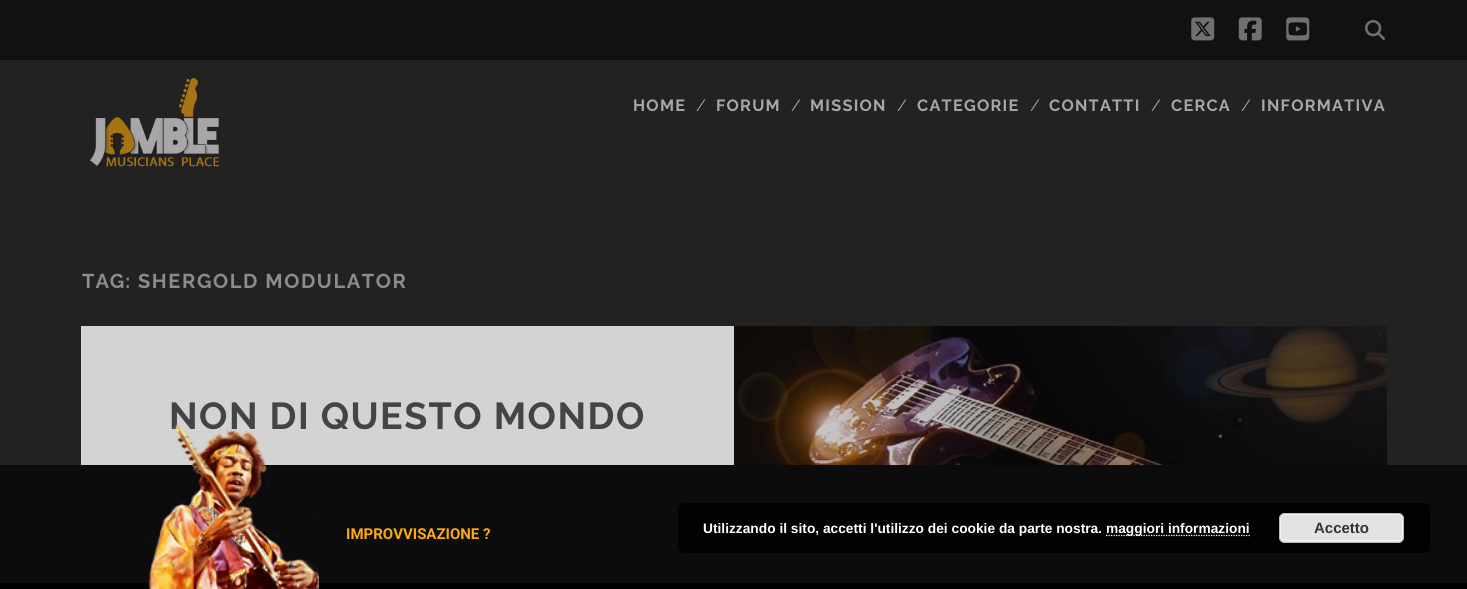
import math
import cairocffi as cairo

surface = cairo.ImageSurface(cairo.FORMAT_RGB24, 1467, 589)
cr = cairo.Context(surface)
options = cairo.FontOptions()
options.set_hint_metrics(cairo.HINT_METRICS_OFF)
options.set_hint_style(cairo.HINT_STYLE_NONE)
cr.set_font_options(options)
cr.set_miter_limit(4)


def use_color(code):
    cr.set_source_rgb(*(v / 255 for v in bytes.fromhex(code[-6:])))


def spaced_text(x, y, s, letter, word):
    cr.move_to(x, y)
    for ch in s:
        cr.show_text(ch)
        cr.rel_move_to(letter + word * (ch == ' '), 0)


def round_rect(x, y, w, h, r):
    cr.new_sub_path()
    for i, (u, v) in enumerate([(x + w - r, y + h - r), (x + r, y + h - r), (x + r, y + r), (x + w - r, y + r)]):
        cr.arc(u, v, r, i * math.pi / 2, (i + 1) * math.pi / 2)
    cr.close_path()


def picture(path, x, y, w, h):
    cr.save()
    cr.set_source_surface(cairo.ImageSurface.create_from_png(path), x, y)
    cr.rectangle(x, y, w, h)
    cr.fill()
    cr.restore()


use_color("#222222")
cr.paint()
use_color("#111111")
cr.rectangle(0, 0, 1467, 60)
cr.fill()
picture("img1.png", 1191, 17, 24, 24)
picture("img2.png", 1238, 17, 24, 24)
picture("img3.png", 1286, 17, 24, 24)
picture("img4.png", 1365, 20, 20, 20)
picture("img5.png", 89, 77, 130, 90)
cr.select_font_face("Raleway", cairo.FONT_SLANT_NORMAL, cairo.FONT_WEIGHT_BOLD)
cr.set_font_size(16.25)
use_color("#a7a7a7")
spaced_text(633, 111, "HOME", 1.25, 0)
cr.select_font_face("Raleway")
cr.move_to(696, 111)
cr.show_text("/")
cr.select_font_face("Raleway", cairo.FONT_SLANT_NORMAL, cairo.FONT_WEIGHT_BOLD)
spaced_text(716, 111, "FORUM", 1.25, 0)
cr.select_font_face("Raleway")
cr.move_to(791, 111)
cr.show_text("/")
cr.select_font_face("Raleway", cairo.FONT_SLANT_NORMAL, cairo.FONT_WEIGHT_BOLD)
spaced_text(810, 111, "MISSION", 1.25, 0)
cr.select_font_face("Raleway")
cr.move_to(897, 111)
cr.show_text("/")
cr.select_font_face("Raleway", cairo.FONT_SLANT_NORMAL, cairo.FONT_WEIGHT_BOLD)
spaced_text(917, 111, "CATEGORIE", 1.25, 0)
cr.select_font_face("Raleway")
cr.move_to(1030, 111)
cr.show_text("/")
cr.select_font_face("Raleway", cairo.FONT_SLANT_NORMAL, cairo.FONT_WEIGHT_BOLD)
spaced_text(1049, 111, "CONTATTI", 1.25, 0)
cr.select_font_face("Raleway")
cr.move_to(1151, 111)
cr.show_text("/")
cr.select_font_face("Raleway", cairo.FONT_SLANT_NORMAL, cairo.FONT_WEIGHT_BOLD)
spaced_text(1171, 111, "CERCA", 1.25, 0)
cr.select_font_face("Raleway")
cr.move_to(1241, 111)
cr.show_text("/")
cr.select_font_face("Raleway", cairo.FONT_SLANT_NORMAL, cairo.FONT_WEIGHT_BOLD)
spaced_text(1261, 111, "INFORMATIVA", 1.25, 0)
cr.set_font_size(20)
use_color("#8c8c8c")
spaced_text(82, 288, "TAG:", 1, 0)
spaced_text(138, 288, "SHERGOLD MODULATOR", 1.6, 0)
use_color("#d3d3d3")
cr.rectangle(81, 326, 653, 139)
cr.fill()
cr.set_font_size(37.5)
use_color("#444444")
spaced_text(169, 429, "NON DI QUESTO MONDO", 1.5, 0)
picture("img6.png", 734, 326, 653, 139)
use_color("#0c0c0c")
cr.rectangle(0, 465, 1467, 118)
cr.fill()
use_color("#000000")
cr.rectangle(0, 583, 1467, 6)
cr.fill()
picture("img7.png", 148, 425, 171, 164)
cr.select_font_face("Roboto", cairo.FONT_SLANT_NORMAL, cairo.FONT_WEIGHT_BOLD)
cr.set_font_size(15)
use_color("#feaa0c")
cr.move_to(346, 539)
cr.show_text("IMPROVVISAZIONE ?")
use_color("#020202")
round_rect(678, 503, 752, 50, 6)
cr.fill()
cr.select_font_face("Liberation Sans", cairo.FONT_SLANT_NORMAL, cairo.FONT_WEIGHT_BOLD)
cr.set_font_size(13.75)
use_color("#ffffff")
cr.move_to(703, 533)
cr.show_text("Utilizzando il sito, accetti l'utilizzo dei cookie da parte nostra.")
cr.new_path()
cr.move_to(1106, 535.5)
cr.line_to(1250, 535.5)
cr.set_line_width(1.2)
cr.set_dash([1.25, 1.25])
cr.stroke()
cr.move_to(1106, 533)
cr.show_text("maggiori informazioni")
use_color("#e3e3e3")
round_rect(1279, 513, 125, 30, 6)
cr.fill()
round_rect(1280.5, 514.5, 122, 26, 4.5)
use_color("#f6f6f6")
cr.set_line_width(1)
cr.set_dash([])
cr.stroke()
round_rect(1279.5, 513.5, 124, 29, 5.5)
use_color("#bbbbbb")
cr.stroke()
cr.set_font_size(15)
use_color("#333333")
cr.move_to(1314, 533)
cr.show_text("Accetto")
surface.write_to_png("result.png")
